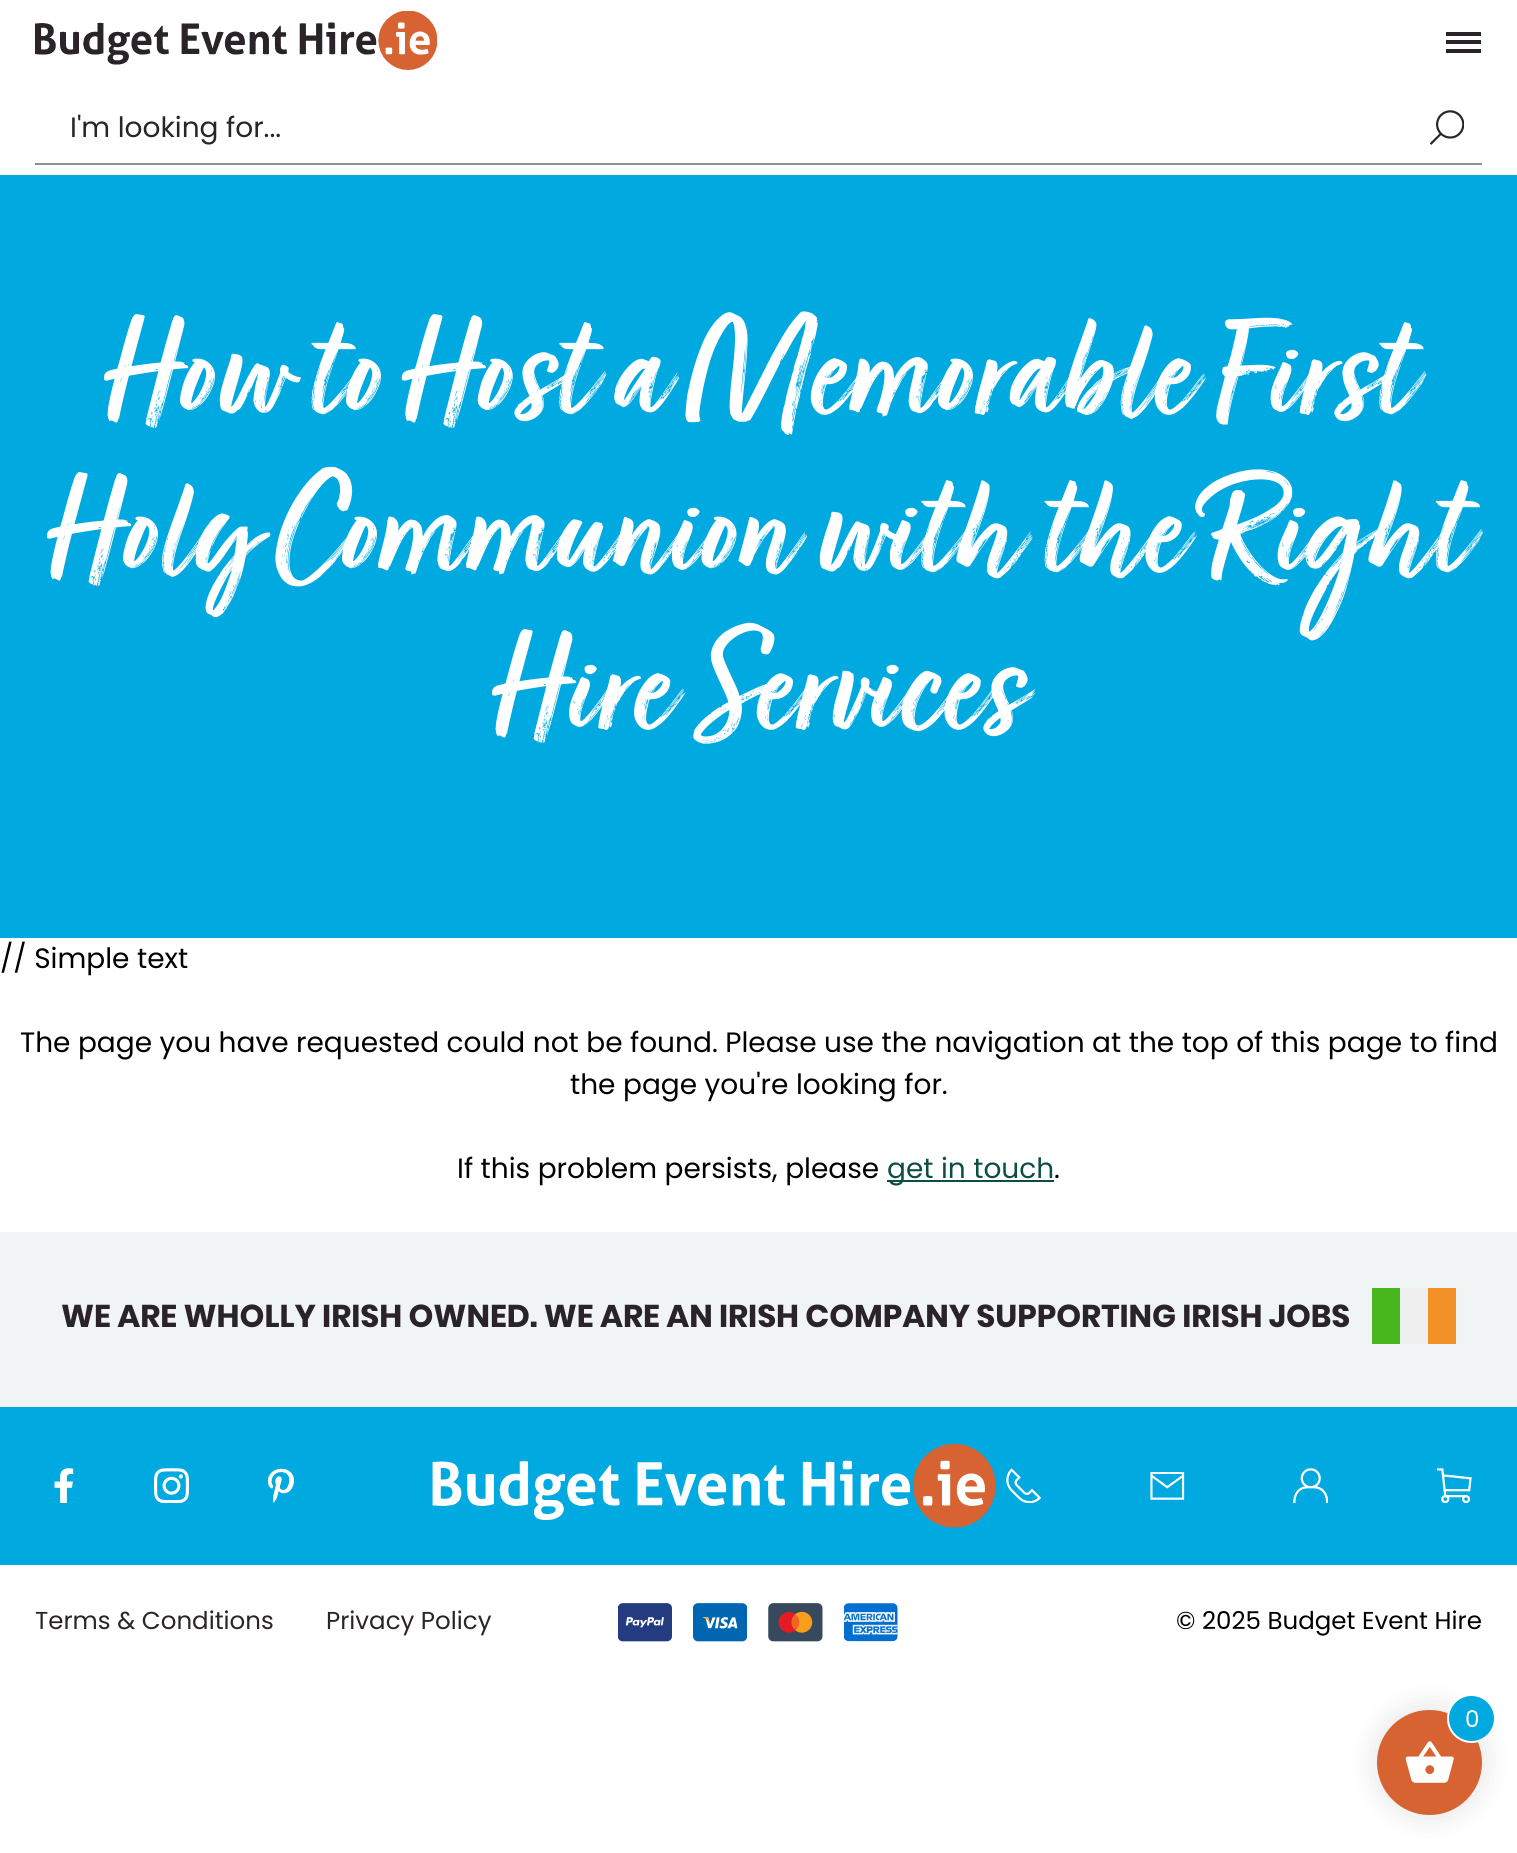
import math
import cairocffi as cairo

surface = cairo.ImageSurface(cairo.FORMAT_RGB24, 1517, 1853)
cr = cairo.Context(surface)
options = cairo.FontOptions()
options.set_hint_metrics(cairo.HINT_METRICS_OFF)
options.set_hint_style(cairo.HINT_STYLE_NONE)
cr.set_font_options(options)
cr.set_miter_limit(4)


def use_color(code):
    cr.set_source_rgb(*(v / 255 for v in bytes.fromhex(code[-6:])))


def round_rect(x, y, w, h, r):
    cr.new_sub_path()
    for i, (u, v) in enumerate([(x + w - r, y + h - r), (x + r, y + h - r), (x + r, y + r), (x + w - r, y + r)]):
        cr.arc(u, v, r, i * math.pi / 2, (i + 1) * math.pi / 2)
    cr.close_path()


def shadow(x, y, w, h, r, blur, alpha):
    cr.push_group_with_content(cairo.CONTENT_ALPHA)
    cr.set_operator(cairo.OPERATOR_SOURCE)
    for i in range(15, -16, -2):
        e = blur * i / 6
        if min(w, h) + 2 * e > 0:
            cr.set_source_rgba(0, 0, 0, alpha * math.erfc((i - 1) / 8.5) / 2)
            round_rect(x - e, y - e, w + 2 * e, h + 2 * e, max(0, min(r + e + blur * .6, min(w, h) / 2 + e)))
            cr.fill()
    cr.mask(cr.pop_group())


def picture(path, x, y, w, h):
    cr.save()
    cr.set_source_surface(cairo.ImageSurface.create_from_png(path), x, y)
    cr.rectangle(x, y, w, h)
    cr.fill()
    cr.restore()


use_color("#ffffff")
cr.paint()
picture("img1.png", 35, 11, 403, 59)
use_color("#2a2428")
cr.rectangle(1446, 32, 35, 4)
cr.fill()
cr.rectangle(1446, 40, 35, 4)
cr.fill()
cr.rectangle(1446, 49, 35, 4)
cr.fill()
use_color("#8c9190")
cr.rectangle(35, 163, 1447, 2)
cr.fill()
cr.select_font_face("Poppins")
cr.set_font_size(28)
use_color("#2a2428")
cr.move_to(70, 137)
cr.show_text("I'm looking for...")
picture("img2.png", 1430, 110, 34, 35)
use_color("#00a9e0")
cr.rectangle(0, 175, 1517, 763)
cr.fill()
cr.select_font_face("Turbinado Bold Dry", cairo.FONT_SLANT_NORMAL, cairo.FONT_WEIGHT_BOLD)
cr.set_font_size(157.5)
use_color("#ffffff")
cr.move_to(105, 427)
cr.show_text("How to Host a Memorable First")
cr.move_to(48, 585)
cr.show_text("Holy Communion with the Right")
cr.move_to(493, 742)
cr.show_text("Hire Services")
cr.select_font_face("Poppins")
cr.set_font_size(28)
use_color("#000000")
cr.move_to(0, 968)
cr.show_text("// Simple text")
cr.move_to(20, 1052)
cr.show_text("The page you have requested could not be found. Please use the navigation at the top of this page to find")
cr.move_to(570, 1094)
cr.show_text("the page you're looking for.")
cr.move_to(457, 1178)
cr.show_text("If this problem persists, please")
use_color("#0c4e43")
cr.rectangle(887, 1180, 167, 2)
cr.fill()
cr.move_to(887, 1178)
cr.show_text("get in touch")
use_color("#000000")
cr.move_to(1054, 1178)
cr.show_text(".")
use_color("#f0f4f5")
cr.rectangle(0, 1232, 1517, 175)
cr.fill()
cr.select_font_face("Poppins", cairo.FONT_SLANT_NORMAL, cairo.FONT_WEIGHT_BOLD)
cr.set_font_size(31.5)
use_color("#2a2428")
cr.move_to(61, 1327)
cr.show_text("WE ARE WHOLLY IRISH OWNED. WE ARE AN IRISH COMPANY SUPPORTING IRISH JOBS")
picture("img3.png", 1372, 1288, 84, 56)
use_color("#00a9e0")
cr.rectangle(0, 1407, 1517, 158)
cr.fill()
picture("img4.png", 54, 1468, 20, 35)
picture("img5.png", 154, 1468, 35, 35)
picture("img6.png", 268, 1468, 26, 35)
picture("img7.png", 432, 1444, 564, 84)
picture("img8.png", 1006, 1468, 35, 35)
picture("img9.png", 1150, 1472, 35, 28)
picture("img10.png", 1293, 1468, 35, 35)
picture("img11.png", 1437, 1468, 35, 35)
cr.select_font_face("Poppins")
cr.set_font_size(24.5)
use_color("#2a2428")
cr.move_to(35, 1629)
cr.show_text("Terms & Conditions")
cr.move_to(326, 1629)
cr.show_text("Privacy Policy")
picture("img12.png", 618, 1603, 54, 39)
picture("img13.png", 693, 1603, 54, 39)
picture("img14.png", 768, 1603, 55, 39)
picture("img15.png", 844, 1603, 54, 39)
use_color("#000000")
cr.move_to(1176, 1629)
cr.show_text("© 2025 Budget Event Hire")
use_color("#000000")
shadow(1374, 1706, 112, 112, 56, 13, 0.1)
use_color("#d76232")
cr.arc(1429.5, 1762.5, 52.5, 0, 2 * math.pi)
cr.fill()
picture("img16.png", 1405, 1741, 49, 42)
use_color("#00a9e0")
cr.arc(1471.5, 1718.5, 23.5, 0, 2 * math.pi)
cr.fill_preserve()
use_color("#ffffff")
cr.stroke()
cr.set_font_size(23)
cr.move_to(1465, 1727)
cr.show_text("0")
surface.write_to_png("result.png")
